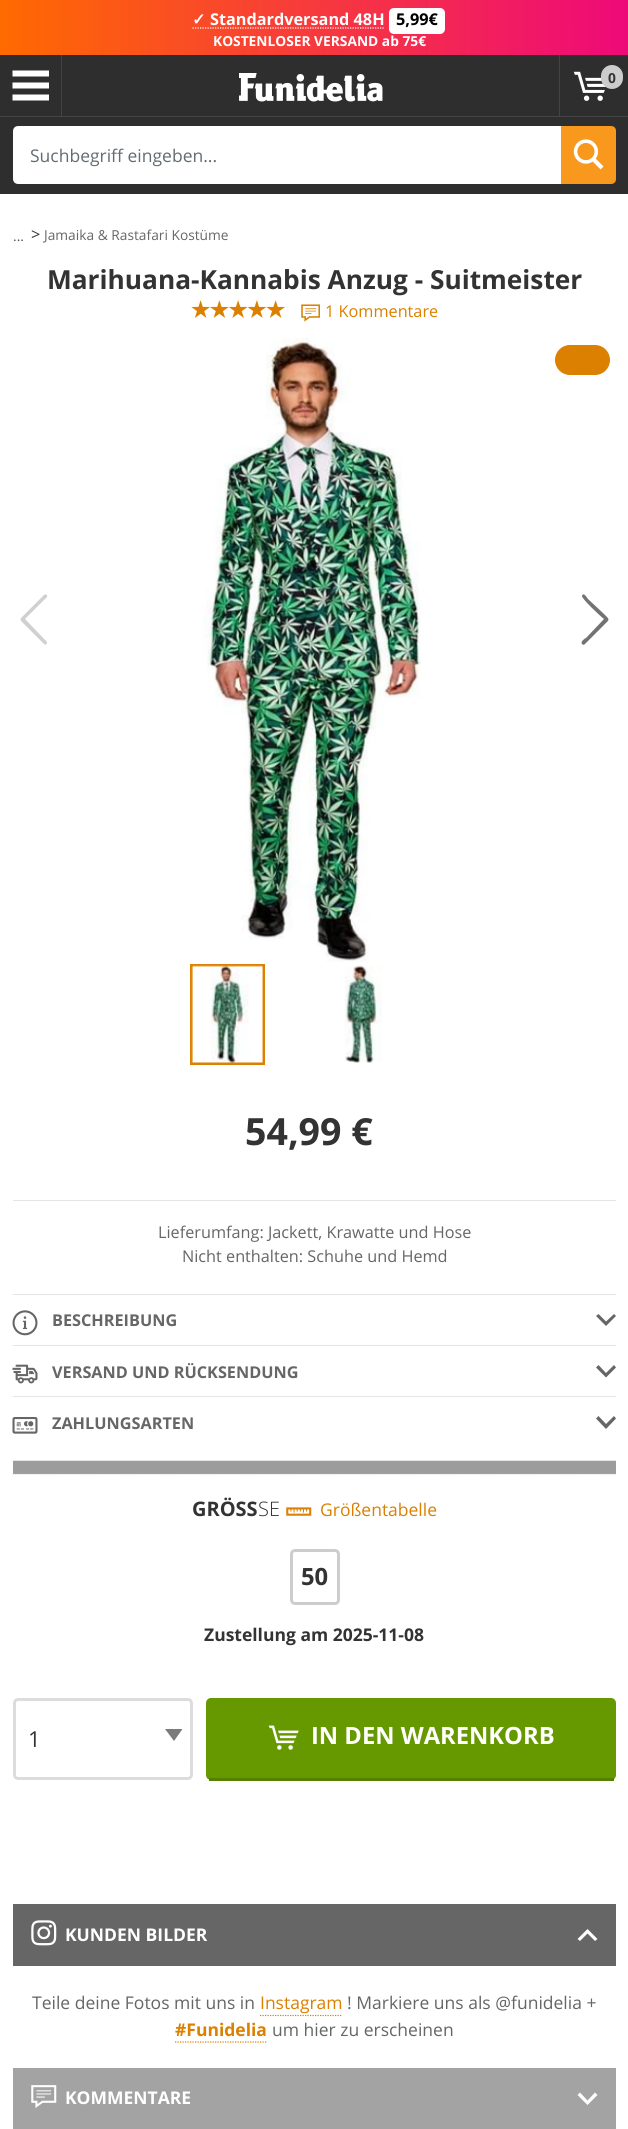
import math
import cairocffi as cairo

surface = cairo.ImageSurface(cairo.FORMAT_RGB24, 628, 2129)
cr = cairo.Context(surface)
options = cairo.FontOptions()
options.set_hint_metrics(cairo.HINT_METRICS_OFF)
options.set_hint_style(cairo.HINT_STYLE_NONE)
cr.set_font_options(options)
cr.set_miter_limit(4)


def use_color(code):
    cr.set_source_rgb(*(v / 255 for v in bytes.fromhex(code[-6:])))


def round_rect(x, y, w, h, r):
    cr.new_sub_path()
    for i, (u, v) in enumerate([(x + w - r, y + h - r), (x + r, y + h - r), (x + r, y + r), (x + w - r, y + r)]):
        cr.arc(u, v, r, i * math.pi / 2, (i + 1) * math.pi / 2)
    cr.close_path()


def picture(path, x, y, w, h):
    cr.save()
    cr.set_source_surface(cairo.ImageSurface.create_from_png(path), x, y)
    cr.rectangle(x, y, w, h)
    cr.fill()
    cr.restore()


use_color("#ffffff")
cr.paint()
use_color("#2e2e2e")
cr.rectangle(0, 55, 628, 139)
cr.fill()
gradient = cairo.LinearGradient(0, 28, 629, 27)
gradient.add_color_stop_rgba(0, 1, 0.416, 0, 1)
gradient.add_color_stop_rgba(1, 0.933, 0.035, 0.475, 1)
cr.set_source(gradient)
cr.rectangle(0, 0, 628, 55)
cr.fill()
cr.new_path()
cr.move_to(192.5, 28)
cr.line_to(384, 28)
use_color("#ffffff")
cr.set_line_width(1.2)
cr.set_dash([1.25, 1.25])
cr.stroke()
cr.select_font_face("DejaVu Sans", cairo.FONT_SLANT_NORMAL, cairo.FONT_WEIGHT_BOLD)
cr.set_font_size(16.25)
cr.move_to(192, 25)
cr.show_text("✓")
cr.select_font_face("Open Sans", cairo.FONT_SLANT_NORMAL, cairo.FONT_WEIGHT_BOLD)
cr.move_to(210, 25)
cr.show_text("Standardversand 48H")
round_rect(389, 8, 56, 26, 5)
cr.fill()
use_color("#000000")
cr.move_to(396, 25)
cr.show_text("5,99€")
cr.set_font_size(13.75)
use_color("#ffffff")
cr.move_to(213, 46)
cr.show_text("KOSTENLOSER VERSAND ab 75€")
use_color("#444444")
cr.rectangle(61, 55, 1, 61)
cr.fill()
use_color("#ffffff")
cr.new_path()
cr.move_to(49, 76.5)
cr.line_to(12.5, 76.5)
cr.line_to(12.5, 70.5)
cr.line_to(49, 70.5)
cr.close_path()
cr.move_to(49, 82.5)
cr.line_to(12.5, 82.5)
cr.line_to(12.5, 88.5)
cr.line_to(49, 88.5)
cr.close_path()
cr.move_to(49, 94.5)
cr.line_to(12.5, 94.5)
cr.line_to(12.5, 100.5)
cr.line_to(49, 100.5)
cr.close_path()
cr.fill()
picture("img1.png", 239, 73, 144, 29)
use_color("#444444")
cr.rectangle(559, 55, 1, 61)
cr.fill()
picture("img2.png", 573, 71, 33, 30)
use_color("#cccccc")
round_rect(601, 65, 22, 24, 11)
cr.fill()
use_color("#333333")
cr.move_to(608, 83)
cr.show_text("0")
use_color("#444444")
cr.rectangle(0, 116, 628, 1)
cr.fill()
use_color("#ffffff")
cr.new_path()
cr.move_to(18, 127.5)
cr.line_to(559.5, 127.5)
cr.line_to(559.5, 182.5)
cr.line_to(18, 182.5)
cr.curve_to(16, 182.5, 14.5, 181, 14.5, 179)
cr.line_to(14.5, 131)
cr.curve_to(14.5, 129, 16, 127.5, 18, 127.5)
cr.close_path()
cr.fill_preserve()
cr.set_line_width(3)
cr.set_dash([])
cr.stroke()
cr.select_font_face("Open Sans")
cr.set_font_size(17.5)
use_color("#636c72")
cr.move_to(30, 162)
cr.show_text("Suchbegriff eingeben...")
use_color("#f8981d")
cr.new_path()
cr.move_to(561, 126)
cr.line_to(611, 126)
cr.curve_to(614, 126, 616, 128, 616, 131)
cr.line_to(616, 179)
cr.curve_to(616, 182, 614, 184, 611, 184)
cr.line_to(561, 184)
cr.close_path()
cr.fill()
picture("img3.png", 573, 139, 31, 31)
cr.set_font_size(13.75)
use_color("#555555")
cr.move_to(13, 241)
cr.show_text("...")
cr.set_font_size(16.25)
use_color("#333333")
cr.move_to(31, 240)
cr.show_text(">")
cr.set_font_size(13.75)
use_color("#666666")
cr.move_to(44, 240)
cr.show_text("Jamaika & Rastafari Kostüme")
cr.select_font_face("Open Sans", cairo.FONT_SLANT_NORMAL, cairo.FONT_WEIGHT_BOLD)
cr.set_font_size(26.25)
use_color("#333333")
cr.move_to(47, 289)
cr.show_text("Marihuana-Kannabis Anzug - Suitmeister")
picture("img4.png", 191, 300, 94, 18)
picture("img5.png", 301, 304, 19, 18)
cr.select_font_face("Open Sans")
cr.set_font_size(16.25)
use_color("#db8000")
cr.move_to(325, 317)
cr.show_text("1 Kommentare")
use_color("#d0d0d0")
cr.new_path()
cr.move_to(44, 595)
cr.curve_to(46, 593, 48, 596, 47, 597)
cr.line_to(25, 619)
cr.line_to(47, 642)
cr.line_to(47, 643)
cr.curve_to(46, 647, 43, 643, 40, 640)
cr.line_to(25, 625)
cr.curve_to(19, 619, 19, 620, 25, 614)
cr.close_path()
cr.fill()
picture("img6.png", 202, 338, 219, 624)
use_color("#737373")
cr.new_path()
cr.move_to(585, 644)
cr.curve_to(584, 645, 583, 645, 582, 644)
cr.curve_to(580, 642, 585, 638, 586, 638)
cr.line_to(604, 619)
cr.curve_to(601, 617, 581, 598, 582, 596)
cr.curve_to(583, 592, 586, 596, 588, 599)
cr.line_to(604, 614)
cr.curve_to(610, 620, 610, 619, 604, 625)
cr.close_path()
cr.fill()
use_color("#db8000")
round_rect(555, 345, 55, 30, 15)
cr.fill()
cr.rectangle(191.5, 965.5, 72, 98)
cr.stroke()
picture("img7.png", 191, 965, 72, 98)
picture("img8.png", 344, 965, 38, 98)
use_color("#e5e5e5")
cr.rectangle(13, 1200, 603, 1)
cr.fill()
cr.select_font_face("Open Sans", cairo.FONT_SLANT_NORMAL, cairo.FONT_WEIGHT_BOLD)
cr.set_font_size(37.5)
use_color("#333333")
cr.move_to(245, 1145)
cr.show_text("54,99 €")
cr.select_font_face("Open Sans")
cr.set_font_size(16.25)
use_color("#666666")
cr.move_to(158, 1238)
cr.show_text("Lieferumfang: Jackett, Krawatte und Hose")
cr.move_to(182, 1262)
cr.show_text("Nicht enthalten: Schuhe und Hemd")
use_color("#e5e5e5")
cr.rectangle(13, 1460, 603, 1)
cr.fill()
cr.rectangle(13, 1294, 603, 1)
cr.fill()
picture("img9.png", 12, 1310, 26, 26)
cr.select_font_face("Open Sans", cairo.FONT_SLANT_NORMAL, cairo.FONT_WEIGHT_BOLD)
use_color("#666666")
cr.move_to(52, 1326)
cr.show_text("BESCHREIBUNG")
cr.new_path()
cr.move_to(596, 1316)
cr.line_to(598.5, 1314)
cr.line_to(606, 1321.5)
cr.line_to(614, 1314)
cr.line_to(616, 1316)
cr.line_to(606, 1326)
cr.close_path()
cr.fill()
use_color("#e5e5e5")
cr.rectangle(13, 1345, 603, 1)
cr.fill()
picture("img10.png", 12, 1364, 26, 20)
use_color("#666666")
cr.move_to(52, 1378)
cr.show_text("VERSAND UND RÜCKSENDUNG")
cr.new_path()
cr.move_to(596, 1367.5)
cr.line_to(598.5, 1365)
cr.line_to(606, 1373)
cr.line_to(614, 1365)
cr.line_to(616, 1367.5)
cr.line_to(606, 1377.5)
cr.close_path()
cr.fill()
use_color("#e5e5e5")
cr.rectangle(13, 1396, 603, 1)
cr.fill()
picture("img11.png", 12, 1417, 26, 17)
use_color("#666666")
cr.move_to(52, 1429)
cr.show_text("ZAHLUNGSARTEN")
cr.new_path()
cr.move_to(596, 1418.5)
cr.line_to(598.5, 1416)
cr.line_to(606, 1424)
cr.line_to(614, 1416)
cr.line_to(616, 1418.5)
cr.line_to(606, 1429)
cr.close_path()
cr.fill()
use_color("#9c9c9c")
cr.rectangle(13, 1461, 603, 13)
cr.fill()
cr.new_path()
cr.move_to(12.5, 1474.5)
cr.line_to(616, 1474.5)
use_color("#e5e5e5")
cr.set_line_width(1.2)
cr.set_dash([1.25, 1.25])
cr.stroke()
cr.set_font_size(20)
use_color("#333333")
cr.move_to(192, 1516)
cr.show_text("GRÖSS")
cr.select_font_face("Open Sans Light")
cr.move_to(258, 1516)
cr.show_text("SE")
picture("img12.png", 286, 1507, 26, 9)
cr.select_font_face("Open Sans")
cr.set_font_size(17.5)
use_color("#db8000")
cr.move_to(320, 1516)
cr.show_text("Größentabelle")
round_rect(291.5, 1550.5, 47, 53, 3.5)
use_color("#cdcdcd")
cr.set_line_width(3)
cr.set_dash([])
cr.stroke()
cr.select_font_face("Open Sans", cairo.FONT_SLANT_NORMAL, cairo.FONT_WEIGHT_BOLD)
cr.set_font_size(23.75)
use_color("#333333")
cr.move_to(301, 1585)
cr.show_text("50")
cr.set_font_size(17.5)
cr.move_to(204, 1641)
cr.show_text("Zustellung am 2025-11-08")
round_rect(14.5, 1699.5, 177, 79, 3.5)
use_color("#dcdcdc")
cr.stroke()
cr.select_font_face("Open Sans")
cr.set_font_size(22)
use_color("#333333")
cr.move_to(28, 1747)
cr.show_text("1")
use_color("#7b7b7b")
cr.new_path()
cr.move_to(165, 1729)
cr.line_to(182.5, 1729)
cr.line_to(174, 1741)
cr.close_path()
cr.fill()
use_color("#669900")
round_rect(206, 1698, 410, 82, 5)
cr.fill()
use_color("#568100")
cr.rectangle(209, 1778, 405, 3)
cr.fill()
picture("img13.png", 268, 1725, 31, 25)
cr.select_font_face("Open Sans", cairo.FONT_SLANT_NORMAL, cairo.FONT_WEIGHT_BOLD)
cr.set_font_size(23.75)
use_color("#ffffff")
cr.move_to(311, 1744)
cr.show_text("IN DEN WARENKORB")
use_color("#666666")
cr.rectangle(13, 1904, 603, 62)
cr.fill()
picture("img14.png", 31, 1920, 26, 26)
cr.set_font_size(17.5)
use_color("#ffffff")
cr.move_to(65, 1941)
cr.show_text("KUNDEN BILDER")
cr.new_path()
cr.move_to(577.5, 1939)
cr.line_to(580, 1941)
cr.line_to(587.5, 1933.5)
cr.line_to(595, 1941)
cr.line_to(597.5, 1939)
cr.line_to(587.5, 1929)
cr.close_path()
cr.fill()
cr.select_font_face("Open Sans")
use_color("#666666")
cr.move_to(32, 2009)
cr.show_text("Teile deine Fotos mit uns in")
use_color("#db8000")
cr.move_to(260, 2009)
cr.show_text("Instagram")
cr.new_path()
cr.move_to(260, 2015.5)
cr.line_to(342.5, 2015.5)
cr.set_line_width(1.2)
cr.set_dash([1.25, 1.25])
cr.stroke()
use_color("#666666")
cr.move_to(347, 2009)
cr.show_text("! Markiere uns als @funidelia +")
cr.select_font_face("Open Sans", cairo.FONT_SLANT_NORMAL, cairo.FONT_WEIGHT_BOLD)
use_color("#db8000")
cr.move_to(175, 2036)
cr.show_text("#Funidelia")
cr.new_path()
cr.move_to(175, 2042)
cr.line_to(267.5, 2042)
cr.stroke()
cr.select_font_face("Open Sans")
use_color("#666666")
cr.move_to(272, 2036)
cr.show_text("um hier zu erscheinen")
use_color("#a3a3a3")
cr.rectangle(13, 2068, 603, 61)
cr.fill()
picture("img15.png", 31, 2085, 26, 23)
cr.select_font_face("Open Sans", cairo.FONT_SLANT_NORMAL, cairo.FONT_WEIGHT_BOLD)
use_color("#ffffff")
cr.move_to(65, 2104)
cr.show_text("KOMMENTARE")
cr.new_path()
cr.move_to(577.5, 2095)
cr.line_to(580, 2092.5)
cr.line_to(587.5, 2100.5)
cr.line_to(595, 2092.5)
cr.line_to(597.5, 2095)
cr.line_to(587.5, 2105)
cr.close_path()
cr.fill()
surface.write_to_png("result.png")
